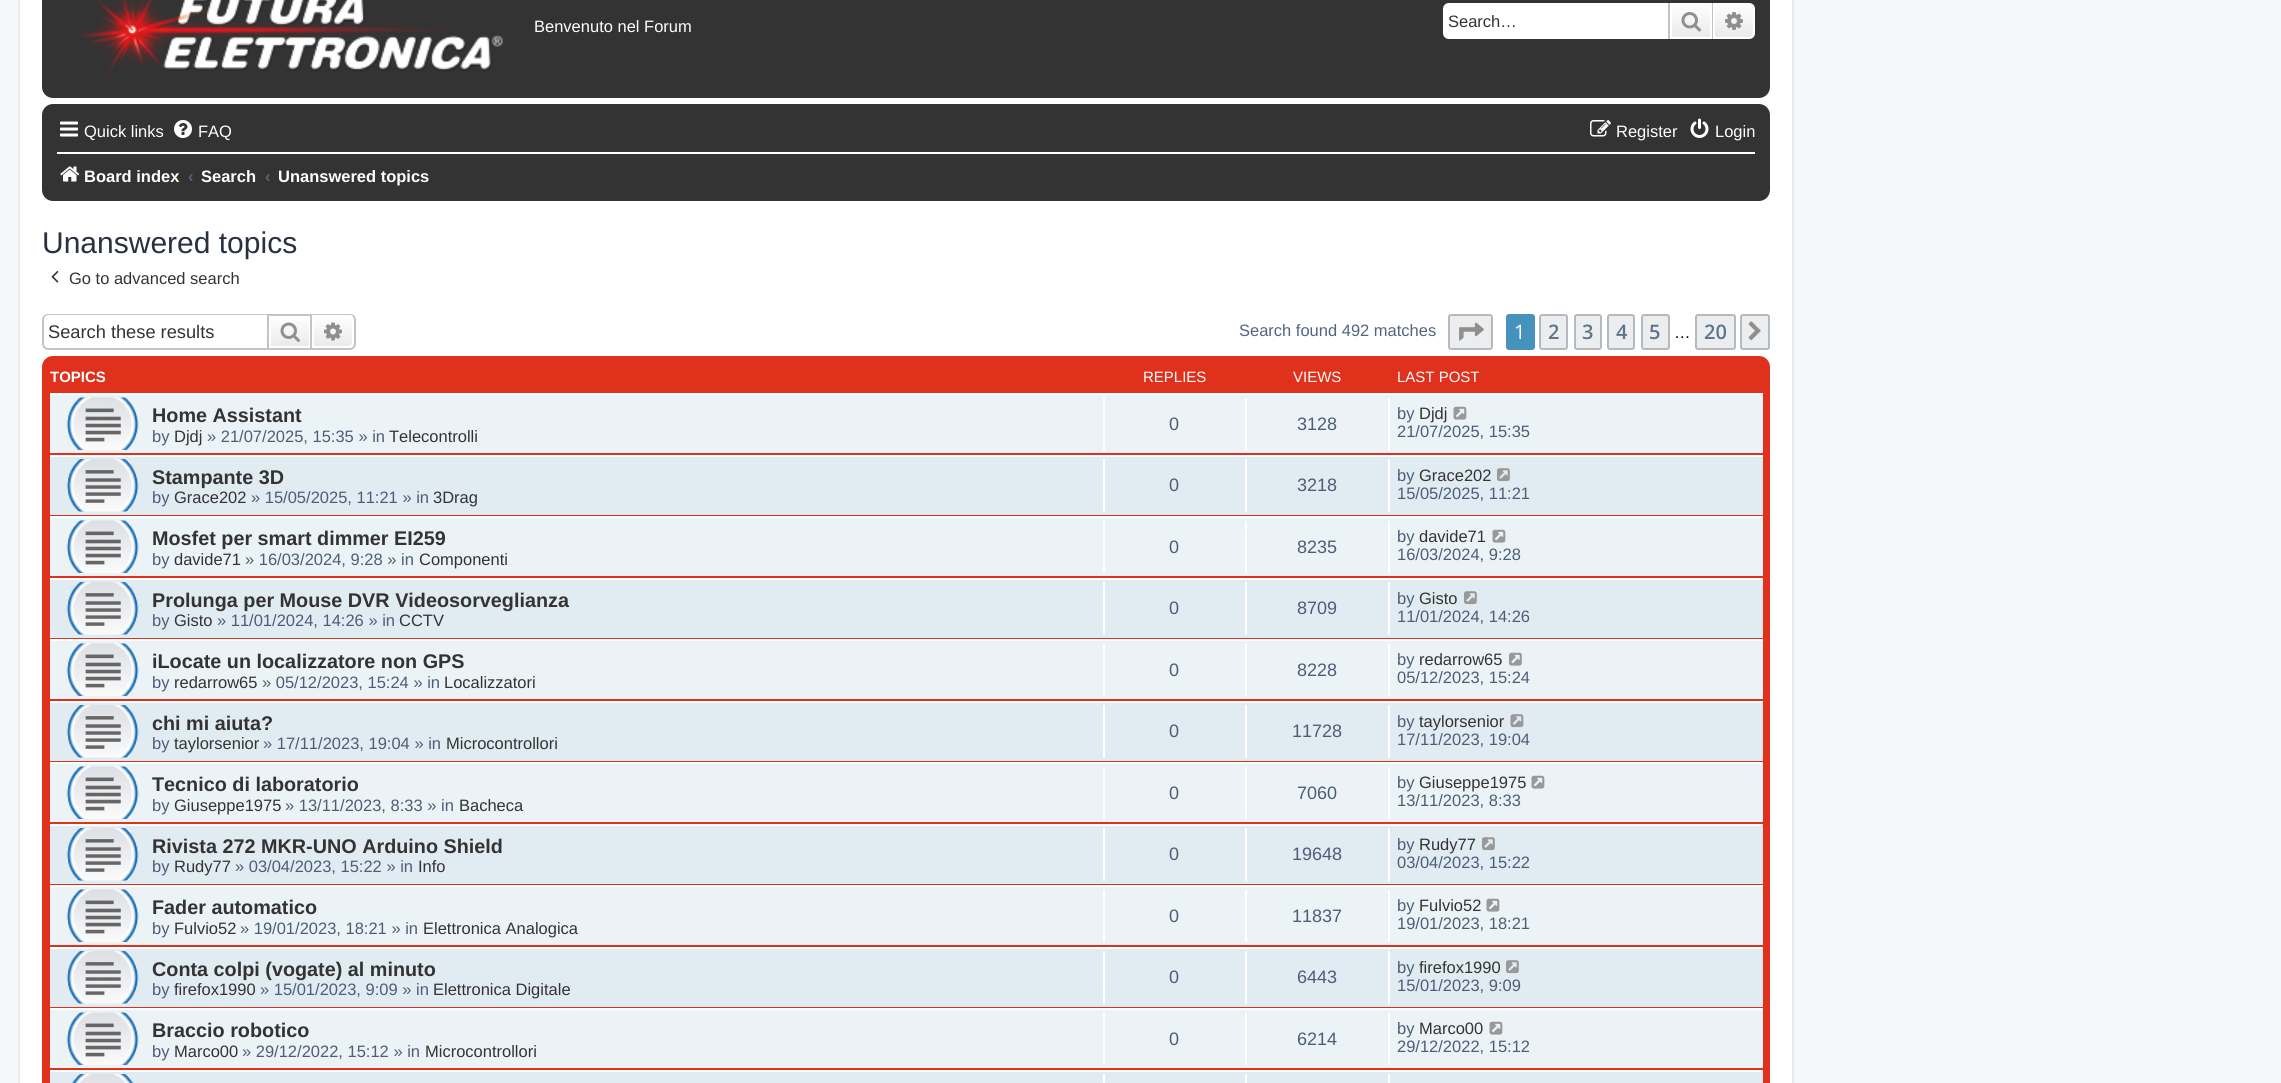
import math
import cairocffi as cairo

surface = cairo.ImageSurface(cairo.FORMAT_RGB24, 2281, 1083)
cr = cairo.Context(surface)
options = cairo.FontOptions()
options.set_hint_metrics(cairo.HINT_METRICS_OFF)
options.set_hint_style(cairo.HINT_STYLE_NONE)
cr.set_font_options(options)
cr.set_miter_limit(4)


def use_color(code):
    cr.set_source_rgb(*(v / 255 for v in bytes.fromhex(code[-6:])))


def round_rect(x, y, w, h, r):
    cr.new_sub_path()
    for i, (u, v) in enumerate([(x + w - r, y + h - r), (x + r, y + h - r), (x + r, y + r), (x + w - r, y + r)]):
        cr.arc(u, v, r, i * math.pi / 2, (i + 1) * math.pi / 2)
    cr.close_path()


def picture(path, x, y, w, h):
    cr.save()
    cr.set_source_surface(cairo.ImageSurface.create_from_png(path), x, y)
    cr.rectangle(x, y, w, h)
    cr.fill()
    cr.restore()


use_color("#f5f7fa")
cr.paint()
use_color("#ffffff")
cr.rectangle(19, -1, 1774, 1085)
cr.fill_preserve()
use_color("#e6e9ed")
cr.stroke()
use_color("#333333")
round_rect(42, -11, 1728, 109, 11)
cr.fill()
picture("img1.png", 76, 0, 427, 75)
cr.select_font_face("Liberation Sans")
cr.set_font_size(16.5)
use_color("#ffffff")
cr.move_to(534, 32)
cr.show_text("Benvenuto nel Forum")
cr.new_path()
cr.move_to(1449, 3)
cr.line_to(1668, 3)
cr.line_to(1668, 39)
cr.line_to(1449, 39)
cr.curve_to(1445.5, 39, 1443, 36.5, 1443, 33)
cr.line_to(1443, 9)
cr.curve_to(1443, 5.5, 1445.5, 3, 1449, 3)
cr.close_path()
cr.fill()
use_color("#333333")
cr.move_to(1448, 27)
cr.show_text("Search…")
gradient = cairo.LinearGradient(1691, 3, 1691, 39)
gradient.add_color_stop_rgba(0, 1, 1, 1, 1)
gradient.add_color_stop_rgba(1, 0.914, 0.914, 0.914, 1)
cr.set_source(gradient)
cr.rectangle(1672, 5, 38, 32)
cr.fill()
cr.rectangle(1671, 4, 40, 34)
use_color("#ffffff")
cr.stroke()
use_color("#c7c3bf")
cr.rectangle(1712, 3, 1, 36)
cr.fill()
cr.rectangle(1668, 3, 2, 36)
cr.fill()
picture("img2.png", 1681, 12, 20, 20)
gradient = cairo.LinearGradient(1734, 3, 1734, 39)
gradient.add_color_stop_rgba(0, 1, 1, 1, 1)
gradient.add_color_stop_rgba(1, 0.914, 0.914, 0.914, 1)
cr.set_source(gradient)
cr.new_path()
cr.move_to(1714, 4)
cr.line_to(1749, 4)
cr.curve_to(1752, 4, 1754, 6, 1754, 9)
cr.line_to(1754, 33)
cr.curve_to(1754, 36, 1752, 38, 1749, 38)
cr.line_to(1714, 38)
cr.close_path()
cr.fill_preserve()
use_color("#ffffff")
cr.stroke()
picture("img3.png", 1725, 12, 18, 18)
use_color("#333333")
round_rect(42, 104, 1728, 97, 11)
cr.fill()
picture("img4.png", 60, 121, 18, 16)
use_color("#ffffff")
cr.move_to(84, 137)
cr.show_text("Quick links")
picture("img5.png", 174, 120, 18, 18)
cr.move_to(198, 137)
cr.show_text("FAQ")
picture("img6.png", 1590, 120, 21, 17)
cr.move_to(1616, 137)
cr.show_text("Register")
picture("img7.png", 1690, 118, 19, 20)
cr.move_to(1715, 137)
cr.show_text("Login")
cr.rectangle(57, 152, 1698, 2)
cr.fill()
picture("img8.png", 60, 166, 20, 16)
cr.select_font_face("Liberation Sans", cairo.FONT_SLANT_NORMAL, cairo.FONT_WEIGHT_BOLD)
cr.move_to(84, 182)
cr.show_text("Board index")
use_color("#536482")
cr.move_to(188, 182)
cr.show_text("‹")
use_color("#ffffff")
cr.move_to(201, 182)
cr.show_text("Search")
use_color("#536482")
cr.move_to(265, 182)
cr.show_text("‹")
use_color("#ffffff")
cr.move_to(278, 182)
cr.show_text("Unanswered topics")
cr.select_font_face("Liberation Sans")
cr.set_font_size(30)
use_color("#28313f")
cr.move_to(42, 253)
cr.show_text("Unanswered topics")
picture("img9.png", 51, 271, 8, 12)
cr.set_font_size(16.5)
use_color("#333333")
cr.move_to(69, 284)
cr.show_text("Go to advanced search")
use_color("#c7c3bf")
cr.set_fill_rule(cairo.FILL_RULE_EVEN_ODD)
cr.new_path()
cr.move_to(48, 314)
cr.line_to(267, 314)
cr.line_to(267, 350)
cr.line_to(48, 350)
cr.curve_to(45, 350, 42, 347, 42, 344)
cr.line_to(42, 320)
cr.curve_to(42, 316, 45, 314, 48, 314)
cr.close_path()
cr.move_to(48, 315)
cr.line_to(267, 315)
cr.line_to(267, 348)
cr.line_to(48, 348)
cr.curve_to(46, 348, 44, 346, 44, 344)
cr.line_to(44, 320)
cr.curve_to(44, 317, 46, 315, 48, 315)
cr.close_path()
cr.fill()
cr.set_font_size(18.25)
use_color("#333333")
cr.move_to(48, 338)
cr.show_text("Search these results")
gradient = cairo.LinearGradient(290, 315, 290, 348)
gradient.add_color_stop_rgba(0, 1, 1, 1, 1)
gradient.add_color_stop_rgba(1, 0.914, 0.914, 0.914, 1)
cr.set_source(gradient)
cr.rectangle(271, 319, 38, 27)
cr.fill()
cr.rectangle(268, 315, 43, 34)
use_color("#c7c3bf")
cr.stroke()
picture("img10.png", 280, 322, 20, 20)
gradient = cairo.LinearGradient(333, 315, 333, 348)
gradient.add_color_stop_rgba(0, 1, 1, 1, 1)
gradient.add_color_stop_rgba(1, 0.914, 0.914, 0.914, 1)
cr.set_source(gradient)
cr.new_path()
cr.move_to(313, 316)
cr.line_to(349, 316)
cr.curve_to(351, 316, 353, 318, 353, 320)
cr.line_to(353, 343)
cr.curve_to(353, 345, 351, 347, 349, 347)
cr.line_to(313, 347)
cr.close_path()
cr.fill_preserve()
use_color("#ffffff")
cr.stroke()
use_color("#c7c3bf")
cr.new_path()
cr.move_to(312, 314)
cr.line_to(350, 314)
cr.curve_to(353, 314, 356, 316, 356, 320)
cr.line_to(356, 344)
cr.curve_to(356, 347, 353, 350, 350, 350)
cr.line_to(312, 350)
cr.close_path()
cr.move_to(312, 315)
cr.line_to(350, 315)
cr.curve_to(352, 315, 354, 317, 354, 320)
cr.line_to(354, 344)
cr.curve_to(354, 346, 352, 348, 350, 348)
cr.line_to(312, 348)
cr.close_path()
cr.fill()
picture("img11.png", 324, 322, 18, 19)
cr.set_font_size(16.5)
use_color("#536482")
cr.move_to(1239, 336)
cr.show_text("Search found 492 matches")
use_color("#ecedee")
round_rect(1449, 315, 43, 34, 2)
cr.fill_preserve()
use_color("#b4bac0")
cr.stroke()
picture("img12.png", 1459, 322, 25, 19)
use_color("#4692bf")
round_rect(1507, 315, 27, 34, 2)
cr.fill_preserve()
cr.stroke()
cr.select_font_face("Open Sans")
cr.set_font_size(20)
use_color("#ffffff")
cr.move_to(1514, 339)
cr.show_text("1")
use_color("#ecedee")
round_rect(1540, 315, 27, 34, 2)
cr.fill_preserve()
use_color("#b4bac0")
cr.stroke()
cr.select_font_face("Open Sans SemiBold")
use_color("#5c758c")
cr.move_to(1548, 339)
cr.show_text("2")
use_color("#ecedee")
round_rect(1575, 315, 26, 34, 2)
cr.fill_preserve()
use_color("#b4bac0")
cr.stroke()
use_color("#5c758c")
cr.move_to(1582, 339)
cr.show_text("3")
use_color("#ecedee")
round_rect(1608, 315, 26, 34, 2)
cr.fill_preserve()
use_color("#b4bac0")
cr.stroke()
use_color("#5c758c")
cr.move_to(1616, 339)
cr.show_text("4")
use_color("#ecedee")
round_rect(1642, 315, 27, 34, 2)
cr.fill_preserve()
use_color("#b4bac0")
cr.stroke()
use_color("#5c758c")
cr.move_to(1649, 339)
cr.show_text("5")
cr.select_font_face("Liberation Sans")
cr.set_font_size(16.5)
use_color("#000000")
cr.move_to(1674, 338)
cr.show_text("…")
use_color("#ecedee")
round_rect(1696, 315, 39, 34, 2)
cr.fill_preserve()
use_color("#b4bac0")
cr.stroke()
cr.select_font_face("Open Sans SemiBold")
cr.set_font_size(20)
use_color("#5c758c")
cr.move_to(1704, 339)
cr.show_text("20")
use_color("#ecedee")
round_rect(1741, 315, 28, 34, 2)
cr.fill_preserve()
use_color("#b4bac0")
cr.stroke()
picture("img13.png", 1748, 321, 13, 20)
use_color("#e0311d")
round_rect(42, 356, 1728, 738, 11)
cr.fill()
cr.save()
cr.set_fill_rule(cairo.FILL_RULE_WINDING)
cr.rectangle(50, 363, 1713, 30)
cr.clip()
cr.select_font_face("Liberation Sans", cairo.FONT_SLANT_NORMAL, cairo.FONT_WEIGHT_BOLD)
cr.set_font_size(15)
use_color("#ffffff")
cr.move_to(50, 382)
cr.show_text("TOPICS")
cr.restore()
cr.select_font_face("Liberation Sans")
cr.set_font_size(15)
use_color("#ffffff")
cr.move_to(1143, 382)
cr.show_text("REPLIES")
cr.move_to(1293, 382)
cr.show_text("VIEWS")
cr.move_to(1397, 382)
cr.show_text("LAST POST")
use_color("#ecf3f7")
cr.rectangle(50, 395, 1713, 58)
cr.fill()
use_color("#ffffff")
cr.rectangle(50, 393, 1713, 2)
cr.fill()
picture("img14.png", 66, 397, 73, 53)
cr.select_font_face("Liberation Sans", cairo.FONT_SLANT_NORMAL, cairo.FONT_WEIGHT_BOLD)
cr.set_font_size(19.8)
use_color("#333333")
cr.move_to(152, 422)
cr.show_text("Home Assistant")
cr.select_font_face("Liberation Sans")
cr.set_font_size(16.5)
use_color("#4c5d77")
cr.move_to(152, 442)
cr.show_text("by")
use_color("#333333")
cr.move_to(174, 442)
cr.show_text("Djdj")
use_color("#4c5d77")
cr.move_to(207, 442)
cr.show_text("» 21/07/2025, 15:35 » in")
use_color("#333333")
cr.move_to(389, 442)
cr.show_text("Telecontrolli")
use_color("#ffffff")
cr.rectangle(1103, 398, 2, 52)
cr.fill()
cr.set_font_size(18)
use_color("#4c5d77")
cr.move_to(1169, 430)
cr.show_text("0")
use_color("#ffffff")
cr.rectangle(1245, 398, 2, 52)
cr.fill()
use_color("#4c5d77")
cr.move_to(1297, 430)
cr.show_text("3128")
use_color("#ffffff")
cr.rectangle(1388, 398, 2, 52)
cr.fill()
cr.set_font_size(16.5)
use_color("#4c5d77")
cr.move_to(1397, 419)
cr.show_text("by")
use_color("#333333")
cr.move_to(1419, 419)
cr.show_text("Djdj")
picture("img15.png", 1453, 406, 14, 14)
use_color("#4c5d77")
cr.move_to(1397, 437)
cr.show_text("21/07/2025, 15:35")
use_color("#e1ebf2")
cr.rectangle(50, 457, 1713, 58)
cr.fill()
use_color("#ffffff")
cr.rectangle(50, 455, 1713, 2)
cr.fill()
picture("img16.png", 66, 459, 73, 53)
cr.select_font_face("Liberation Sans", cairo.FONT_SLANT_NORMAL, cairo.FONT_WEIGHT_BOLD)
cr.set_font_size(19.8)
use_color("#333333")
cr.move_to(152, 484)
cr.show_text("Stampante 3D")
cr.select_font_face("Liberation Sans")
cr.set_font_size(16.5)
use_color("#4c5d77")
cr.move_to(152, 503)
cr.show_text("by")
use_color("#333333")
cr.move_to(174, 503)
cr.show_text("Grace202")
use_color("#4c5d77")
cr.move_to(251, 503)
cr.show_text("» 15/05/2025, 11:21 » in")
use_color("#333333")
cr.move_to(433, 503)
cr.show_text("3Drag")
use_color("#ffffff")
cr.rectangle(1103, 459, 2, 53)
cr.fill()
cr.set_font_size(18)
use_color("#4c5d77")
cr.move_to(1169, 491)
cr.show_text("0")
use_color("#ffffff")
cr.rectangle(1245, 459, 2, 53)
cr.fill()
use_color("#4c5d77")
cr.move_to(1297, 491)
cr.show_text("3218")
use_color("#ffffff")
cr.rectangle(1388, 459, 2, 53)
cr.fill()
cr.set_font_size(16.5)
use_color("#4c5d77")
cr.move_to(1397, 481)
cr.show_text("by")
use_color("#333333")
cr.move_to(1419, 481)
cr.show_text("Grace202")
picture("img17.png", 1497, 468, 13, 14)
use_color("#4c5d77")
cr.move_to(1397, 499)
cr.show_text("15/05/2025, 11:21")
use_color("#ecf3f7")
cr.rectangle(50, 518, 1713, 58)
cr.fill()
use_color("#ffffff")
cr.rectangle(50, 516, 1713, 2)
cr.fill()
picture("img14.png", 66, 520, 73, 53)
cr.select_font_face("Liberation Sans", cairo.FONT_SLANT_NORMAL, cairo.FONT_WEIGHT_BOLD)
cr.set_font_size(19.8)
use_color("#333333")
cr.move_to(152, 545)
cr.show_text("Mosfet per smart dimmer EI259")
cr.select_font_face("Liberation Sans")
cr.set_font_size(16.5)
use_color("#4c5d77")
cr.move_to(152, 565)
cr.show_text("by")
use_color("#333333")
cr.move_to(174, 565)
cr.show_text("davide71")
use_color("#4c5d77")
cr.move_to(245, 565)
cr.show_text("» 16/03/2024, 9:28 » in")
use_color("#333333")
cr.move_to(419, 565)
cr.show_text("Componenti")
use_color("#ffffff")
cr.rectangle(1103, 521, 2, 52)
cr.fill()
cr.set_font_size(18)
use_color("#4c5d77")
cr.move_to(1169, 553)
cr.show_text("0")
use_color("#ffffff")
cr.rectangle(1245, 521, 2, 52)
cr.fill()
use_color("#4c5d77")
cr.move_to(1297, 553)
cr.show_text("8235")
use_color("#ffffff")
cr.rectangle(1388, 521, 2, 52)
cr.fill()
cr.set_font_size(16.5)
use_color("#4c5d77")
cr.move_to(1397, 542)
cr.show_text("by")
use_color("#333333")
cr.move_to(1419, 542)
cr.show_text("davide71")
picture("img15.png", 1492, 529, 14, 14)
use_color("#4c5d77")
cr.move_to(1397, 560)
cr.show_text("16/03/2024, 9:28")
use_color("#e1ebf2")
cr.rectangle(50, 580, 1713, 58)
cr.fill()
use_color("#ffffff")
cr.rectangle(50, 578, 1713, 2)
cr.fill()
picture("img16.png", 66, 582, 73, 53)
cr.select_font_face("Liberation Sans", cairo.FONT_SLANT_NORMAL, cairo.FONT_WEIGHT_BOLD)
cr.set_font_size(19.8)
use_color("#333333")
cr.move_to(152, 607)
cr.show_text("Prolunga per Mouse DVR Videosorveglianza")
cr.select_font_face("Liberation Sans")
cr.set_font_size(16.5)
use_color("#4c5d77")
cr.move_to(152, 626)
cr.show_text("by")
use_color("#333333")
cr.move_to(174, 626)
cr.show_text("Gisto")
use_color("#4c5d77")
cr.move_to(217, 626)
cr.show_text("» 11/01/2024, 14:26 » in")
use_color("#333333")
cr.move_to(399, 626)
cr.show_text("CCTV")
use_color("#ffffff")
cr.rectangle(1103, 582, 2, 53)
cr.fill()
cr.set_font_size(18)
use_color("#4c5d77")
cr.move_to(1169, 614)
cr.show_text("0")
use_color("#ffffff")
cr.rectangle(1245, 582, 2, 53)
cr.fill()
use_color("#4c5d77")
cr.move_to(1297, 614)
cr.show_text("8709")
use_color("#ffffff")
cr.rectangle(1388, 582, 2, 53)
cr.fill()
cr.set_font_size(16.5)
use_color("#4c5d77")
cr.move_to(1397, 604)
cr.show_text("by")
use_color("#333333")
cr.move_to(1419, 604)
cr.show_text("Gisto")
picture("img17.png", 1464, 591, 13, 14)
use_color("#4c5d77")
cr.move_to(1397, 622)
cr.show_text("11/01/2024, 14:26")
use_color("#ecf3f7")
cr.rectangle(50, 641, 1713, 58)
cr.fill()
use_color("#ffffff")
cr.rectangle(50, 639, 1713, 2)
cr.fill()
picture("img14.png", 66, 643, 73, 53)
cr.select_font_face("Liberation Sans", cairo.FONT_SLANT_NORMAL, cairo.FONT_WEIGHT_BOLD)
cr.set_font_size(19.8)
use_color("#333333")
cr.move_to(152, 668)
cr.show_text("iLocate un localizzatore non GPS")
cr.select_font_face("Liberation Sans")
cr.set_font_size(16.5)
use_color("#4c5d77")
cr.move_to(152, 688)
cr.show_text("by")
use_color("#333333")
cr.move_to(174, 688)
cr.show_text("redarrow65")
use_color("#4c5d77")
cr.move_to(262, 688)
cr.show_text("» 05/12/2023, 15:24 » in")
use_color("#333333")
cr.move_to(444, 688)
cr.show_text("Localizzatori")
use_color("#ffffff")
cr.rectangle(1103, 644, 2, 52)
cr.fill()
cr.set_font_size(18)
use_color("#4c5d77")
cr.move_to(1169, 676)
cr.show_text("0")
use_color("#ffffff")
cr.rectangle(1245, 644, 2, 52)
cr.fill()
use_color("#4c5d77")
cr.move_to(1297, 676)
cr.show_text("8228")
use_color("#ffffff")
cr.rectangle(1388, 644, 2, 52)
cr.fill()
cr.set_font_size(16.5)
use_color("#4c5d77")
cr.move_to(1397, 665)
cr.show_text("by")
use_color("#333333")
cr.move_to(1419, 665)
cr.show_text("redarrow65")
picture("img18.png", 1509, 652, 13, 14)
use_color("#4c5d77")
cr.move_to(1397, 683)
cr.show_text("05/12/2023, 15:24")
use_color("#e1ebf2")
cr.rectangle(50, 703, 1713, 58)
cr.fill()
use_color("#ffffff")
cr.rectangle(50, 701, 1713, 2)
cr.fill()
picture("img16.png", 66, 705, 73, 53)
cr.select_font_face("Liberation Sans", cairo.FONT_SLANT_NORMAL, cairo.FONT_WEIGHT_BOLD)
cr.set_font_size(19.8)
use_color("#333333")
cr.move_to(152, 730)
cr.show_text("chi mi aiuta?")
cr.select_font_face("Liberation Sans")
cr.set_font_size(16.5)
use_color("#4c5d77")
cr.move_to(152, 749)
cr.show_text("by")
use_color("#333333")
cr.move_to(174, 749)
cr.show_text("taylorsenior")
use_color("#4c5d77")
cr.move_to(263, 749)
cr.show_text("» 17/11/2023, 19:04 » in")
use_color("#333333")
cr.move_to(446, 749)
cr.show_text("Microcontrollori")
use_color("#ffffff")
cr.rectangle(1103, 705, 2, 53)
cr.fill()
cr.set_font_size(18)
use_color("#4c5d77")
cr.move_to(1169, 737)
cr.show_text("0")
use_color("#ffffff")
cr.rectangle(1245, 705, 2, 53)
cr.fill()
use_color("#4c5d77")
cr.move_to(1292, 737)
cr.show_text("11728")
use_color("#ffffff")
cr.rectangle(1388, 705, 2, 53)
cr.fill()
cr.set_font_size(16.5)
use_color("#4c5d77")
cr.move_to(1397, 727)
cr.show_text("by")
use_color("#333333")
cr.move_to(1419, 727)
cr.show_text("taylorsenior")
picture("img19.png", 1510, 714, 14, 14)
use_color("#4c5d77")
cr.move_to(1397, 745)
cr.show_text("17/11/2023, 19:04")
use_color("#ecf3f7")
cr.rectangle(50, 764, 1713, 58)
cr.fill()
use_color("#ffffff")
cr.rectangle(50, 762, 1713, 2)
cr.fill()
picture("img14.png", 66, 766, 73, 53)
cr.select_font_face("Liberation Sans", cairo.FONT_SLANT_NORMAL, cairo.FONT_WEIGHT_BOLD)
cr.set_font_size(19.8)
use_color("#333333")
cr.move_to(152, 791)
cr.show_text("Tecnico di laboratorio")
cr.select_font_face("Liberation Sans")
cr.set_font_size(16.5)
use_color("#4c5d77")
cr.move_to(152, 811)
cr.show_text("by")
use_color("#333333")
cr.move_to(174, 811)
cr.show_text("Giuseppe1975")
use_color("#4c5d77")
cr.move_to(285, 811)
cr.show_text("» 13/11/2023, 8:33 » in")
use_color("#333333")
cr.move_to(459, 811)
cr.show_text("Bacheca")
use_color("#ffffff")
cr.rectangle(1103, 767, 2, 52)
cr.fill()
cr.set_font_size(18)
use_color("#4c5d77")
cr.move_to(1169, 799)
cr.show_text("0")
use_color("#ffffff")
cr.rectangle(1245, 767, 2, 52)
cr.fill()
use_color("#4c5d77")
cr.move_to(1297, 799)
cr.show_text("7060")
use_color("#ffffff")
cr.rectangle(1388, 767, 2, 52)
cr.fill()
cr.set_font_size(16.5)
use_color("#4c5d77")
cr.move_to(1397, 788)
cr.show_text("by")
use_color("#333333")
cr.move_to(1419, 788)
cr.show_text("Giuseppe1975")
picture("img15.png", 1531, 775, 14, 14)
use_color("#4c5d77")
cr.move_to(1397, 806)
cr.show_text("13/11/2023, 8:33")
use_color("#e1ebf2")
cr.rectangle(50, 826, 1713, 58)
cr.fill()
use_color("#ffffff")
cr.rectangle(50, 824, 1713, 2)
cr.fill()
picture("img16.png", 66, 828, 73, 53)
cr.select_font_face("Liberation Sans", cairo.FONT_SLANT_NORMAL, cairo.FONT_WEIGHT_BOLD)
cr.set_font_size(19.8)
use_color("#333333")
cr.move_to(152, 853)
cr.show_text("Rivista 272 MKR-UNO Arduino Shield")
cr.select_font_face("Liberation Sans")
cr.set_font_size(16.5)
use_color("#4c5d77")
cr.move_to(152, 872)
cr.show_text("by")
use_color("#333333")
cr.move_to(174, 872)
cr.show_text("Rudy77")
use_color("#4c5d77")
cr.move_to(235, 872)
cr.show_text("» 03/04/2023, 15:22 » in")
use_color("#333333")
cr.move_to(418, 872)
cr.show_text("Info")
use_color("#ffffff")
cr.rectangle(1103, 828, 2, 53)
cr.fill()
cr.set_font_size(18)
use_color("#4c5d77")
cr.move_to(1169, 860)
cr.show_text("0")
use_color("#ffffff")
cr.rectangle(1245, 828, 2, 53)
cr.fill()
use_color("#4c5d77")
cr.move_to(1292, 860)
cr.show_text("19648")
use_color("#ffffff")
cr.rectangle(1388, 828, 2, 53)
cr.fill()
cr.set_font_size(16.5)
use_color("#4c5d77")
cr.move_to(1397, 850)
cr.show_text("by")
use_color("#333333")
cr.move_to(1419, 850)
cr.show_text("Rudy77")
picture("img17.png", 1482, 837, 13, 14)
use_color("#4c5d77")
cr.move_to(1397, 868)
cr.show_text("03/04/2023, 15:22")
use_color("#ecf3f7")
cr.rectangle(50, 887, 1713, 58)
cr.fill()
use_color("#ffffff")
cr.rectangle(50, 885, 1713, 2)
cr.fill()
picture("img14.png", 66, 889, 73, 53)
cr.select_font_face("Liberation Sans", cairo.FONT_SLANT_NORMAL, cairo.FONT_WEIGHT_BOLD)
cr.set_font_size(19.8)
use_color("#333333")
cr.move_to(152, 914)
cr.show_text("Fader automatico")
cr.select_font_face("Liberation Sans")
cr.set_font_size(16.5)
use_color("#4c5d77")
cr.move_to(152, 934)
cr.show_text("by")
use_color("#333333")
cr.move_to(174, 934)
cr.show_text("Fulvio52")
use_color("#4c5d77")
cr.move_to(240, 934)
cr.show_text("» 19/01/2023, 18:21 » in")
use_color("#333333")
cr.move_to(423, 934)
cr.show_text("Elettronica Analogica")
use_color("#ffffff")
cr.rectangle(1103, 890, 2, 52)
cr.fill()
cr.set_font_size(18)
use_color("#4c5d77")
cr.move_to(1169, 922)
cr.show_text("0")
use_color("#ffffff")
cr.rectangle(1245, 890, 2, 52)
cr.fill()
use_color("#4c5d77")
cr.move_to(1292, 922)
cr.show_text("11837")
use_color("#ffffff")
cr.rectangle(1388, 890, 2, 52)
cr.fill()
cr.set_font_size(16.5)
use_color("#4c5d77")
cr.move_to(1397, 911)
cr.show_text("by")
use_color("#333333")
cr.move_to(1419, 911)
cr.show_text("Fulvio52")
picture("img15.png", 1486, 898, 14, 14)
use_color("#4c5d77")
cr.move_to(1397, 929)
cr.show_text("19/01/2023, 18:21")
use_color("#e1ebf2")
cr.rectangle(50, 949, 1713, 58)
cr.fill()
use_color("#ffffff")
cr.rectangle(50, 947, 1713, 2)
cr.fill()
picture("img16.png", 66, 951, 73, 53)
cr.select_font_face("Liberation Sans", cairo.FONT_SLANT_NORMAL, cairo.FONT_WEIGHT_BOLD)
cr.set_font_size(19.8)
use_color("#333333")
cr.move_to(152, 976)
cr.show_text("Conta colpi (vogate) al minuto")
cr.select_font_face("Liberation Sans")
cr.set_font_size(16.5)
use_color("#4c5d77")
cr.move_to(152, 995)
cr.show_text("by")
use_color("#333333")
cr.move_to(174, 995)
cr.show_text("firefox1990")
use_color("#4c5d77")
cr.move_to(260, 995)
cr.show_text("» 15/01/2023, 9:09 » in")
use_color("#333333")
cr.move_to(433, 995)
cr.show_text("Elettronica Digitale")
use_color("#ffffff")
cr.rectangle(1103, 951, 2, 53)
cr.fill()
cr.set_font_size(18)
use_color("#4c5d77")
cr.move_to(1169, 983)
cr.show_text("0")
use_color("#ffffff")
cr.rectangle(1245, 951, 2, 53)
cr.fill()
use_color("#4c5d77")
cr.move_to(1297, 983)
cr.show_text("6443")
use_color("#ffffff")
cr.rectangle(1388, 951, 2, 53)
cr.fill()
cr.set_font_size(16.5)
use_color("#4c5d77")
cr.move_to(1397, 973)
cr.show_text("by")
use_color("#333333")
cr.move_to(1419, 973)
cr.show_text("firefox1990")
picture("img17.png", 1506, 960, 13, 14)
use_color("#4c5d77")
cr.move_to(1397, 991)
cr.show_text("15/01/2023, 9:09")
use_color("#ecf3f7")
cr.rectangle(50, 1010, 1713, 58)
cr.fill()
use_color("#ffffff")
cr.rectangle(50, 1008, 1713, 2)
cr.fill()
picture("img14.png", 66, 1012, 73, 53)
cr.select_font_face("Liberation Sans", cairo.FONT_SLANT_NORMAL, cairo.FONT_WEIGHT_BOLD)
cr.set_font_size(19.8)
use_color("#333333")
cr.move_to(152, 1037)
cr.show_text("Braccio robotico")
cr.select_font_face("Liberation Sans")
cr.set_font_size(16.5)
use_color("#4c5d77")
cr.move_to(152, 1057)
cr.show_text("by")
use_color("#333333")
cr.move_to(174, 1057)
cr.show_text("Marco00")
use_color("#4c5d77")
cr.move_to(242, 1057)
cr.show_text("» 29/12/2022, 15:12 » in")
use_color("#333333")
cr.move_to(425, 1057)
cr.show_text("Microcontrollori")
use_color("#ffffff")
cr.rectangle(1103, 1013, 2, 52)
cr.fill()
cr.set_font_size(18)
use_color("#4c5d77")
cr.move_to(1169, 1045)
cr.show_text("0")
use_color("#ffffff")
cr.rectangle(1245, 1013, 2, 52)
cr.fill()
use_color("#4c5d77")
cr.move_to(1297, 1045)
cr.show_text("6214")
use_color("#ffffff")
cr.rectangle(1388, 1013, 2, 52)
cr.fill()
cr.set_font_size(16.5)
use_color("#4c5d77")
cr.move_to(1397, 1034)
cr.show_text("by")
use_color("#333333")
cr.move_to(1419, 1034)
cr.show_text("Marco00")
picture("img15.png", 1489, 1021, 14, 14)
use_color("#4c5d77")
cr.move_to(1397, 1052)
cr.show_text("29/12/2022, 15:12")
use_color("#e1ebf2")
cr.rectangle(50, 1072, 1713, 11)
cr.fill()
use_color("#ffffff")
cr.rectangle(50, 1070, 1713, 2)
cr.fill()
picture("img20.png", 71, 1074, 63, 9)
cr.rectangle(1103, 1074, 2, 9)
cr.fill()
cr.rectangle(1245, 1074, 2, 9)
cr.fill()
cr.rectangle(1388, 1074, 2, 9)
cr.fill()
surface.write_to_png("result.png")
